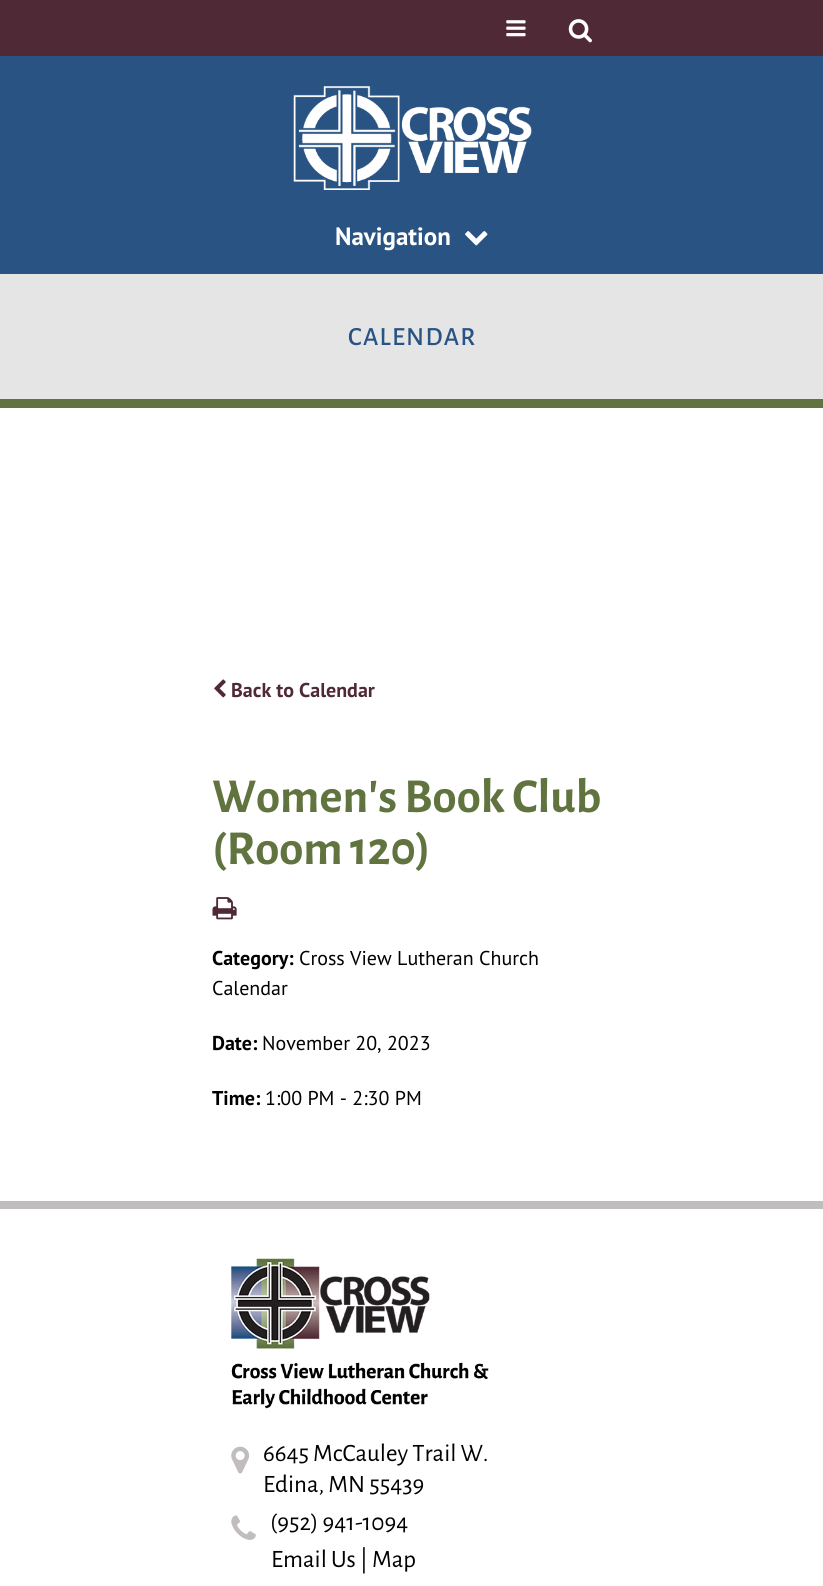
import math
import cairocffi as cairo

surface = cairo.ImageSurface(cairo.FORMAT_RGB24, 823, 1586)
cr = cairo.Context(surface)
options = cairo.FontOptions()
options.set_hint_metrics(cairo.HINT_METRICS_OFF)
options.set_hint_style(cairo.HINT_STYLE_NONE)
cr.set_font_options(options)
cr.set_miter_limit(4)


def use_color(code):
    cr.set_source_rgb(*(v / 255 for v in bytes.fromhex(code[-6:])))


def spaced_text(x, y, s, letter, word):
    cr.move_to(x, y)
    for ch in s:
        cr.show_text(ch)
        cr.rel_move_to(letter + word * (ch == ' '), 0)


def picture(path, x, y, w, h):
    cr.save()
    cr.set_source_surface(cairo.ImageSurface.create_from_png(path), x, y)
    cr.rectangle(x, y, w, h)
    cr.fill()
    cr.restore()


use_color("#ffffff")
cr.paint()
use_color("#295383")
cr.rectangle(0, 56, 823, 218)
cr.fill()
use_color("#4f2936")
cr.rectangle(0, 0, 823, 56)
cr.fill()
picture("img1.png", 506, 20, 20, 17)
picture("img2.png", 568, 19, 24, 24)
picture("img3.png", 293, 86, 239, 104)
cr.select_font_face("PT Sans", cairo.FONT_SLANT_NORMAL, cairo.FONT_WEIGHT_BOLD)
cr.set_font_size(25)
use_color("#ffffff")
cr.move_to(335, 245)
cr.show_text("Navigation")
picture("img4.png", 465, 231, 23, 15)
use_color("#e5e5e5")
cr.rectangle(0, 274, 823, 125)
cr.fill()
use_color("#617440")
cr.rectangle(0, 399, 823, 9)
cr.fill()
cr.select_font_face("Alegreya Sans Medium")
cr.set_font_size(26.25)
use_color("#295383")
spaced_text(348, 345, "CALENDAR", 1.25, 0)
picture("img5.png", 214, 679, 12, 19)
cr.select_font_face("PT Sans", cairo.FONT_SLANT_NORMAL, cairo.FONT_WEIGHT_BOLD)
cr.set_font_size(20)
use_color("#4f2936")
cr.move_to(231, 697)
cr.show_text("Back to Calendar")
cr.select_font_face("Alegreya Sans", cairo.FONT_SLANT_NORMAL, cairo.FONT_WEIGHT_BOLD)
cr.set_font_size(48.75)
use_color("#617440")
cr.move_to(212, 812)
cr.show_text("Women's Book Club")
cr.move_to(212, 864)
cr.show_text("(Room 120)")
picture("img6.png", 212, 897, 25, 23)
cr.select_font_face("PT Sans", cairo.FONT_SLANT_NORMAL, cairo.FONT_WEIGHT_BOLD)
cr.set_font_size(20)
use_color("#000000")
cr.move_to(212, 965)
cr.show_text("Category:")
cr.select_font_face("PT Sans")
cr.move_to(299, 965)
cr.show_text("Cross View Lutheran Church")
cr.move_to(212, 995)
cr.show_text("Calendar")
cr.select_font_face("PT Sans", cairo.FONT_SLANT_NORMAL, cairo.FONT_WEIGHT_BOLD)
cr.move_to(212, 1050)
cr.show_text("Date:")
cr.select_font_face("PT Sans")
cr.move_to(262, 1050)
cr.show_text("November 20, 2023")
cr.select_font_face("PT Sans", cairo.FONT_SLANT_NORMAL, cairo.FONT_WEIGHT_BOLD)
cr.move_to(212, 1105)
cr.show_text("Time:")
cr.select_font_face("PT Sans")
cr.move_to(265, 1105)
cr.show_text("1:00 PM - 2:30 PM")
use_color("#c1bdbe")
cr.rectangle(0, 1201, 823, 8)
cr.fill()
picture("img7.png", 231, 1258, 258, 151)
picture("img8.png", 231, 1446, 19, 28)
cr.select_font_face("Alegreya Sans")
cr.set_font_size(25)
use_color("#000000")
cr.move_to(263, 1461)
cr.show_text("6645 McCauley Trail W.")
cr.move_to(263, 1492)
cr.show_text("Edina, MN 55439")
picture("img9.png", 231, 1515, 25, 25)
cr.move_to(270, 1530)
cr.show_text("(952) 941-1094")
cr.move_to(271, 1567)
cr.show_text("Email Us | Map")
surface.write_to_png("result.png")
